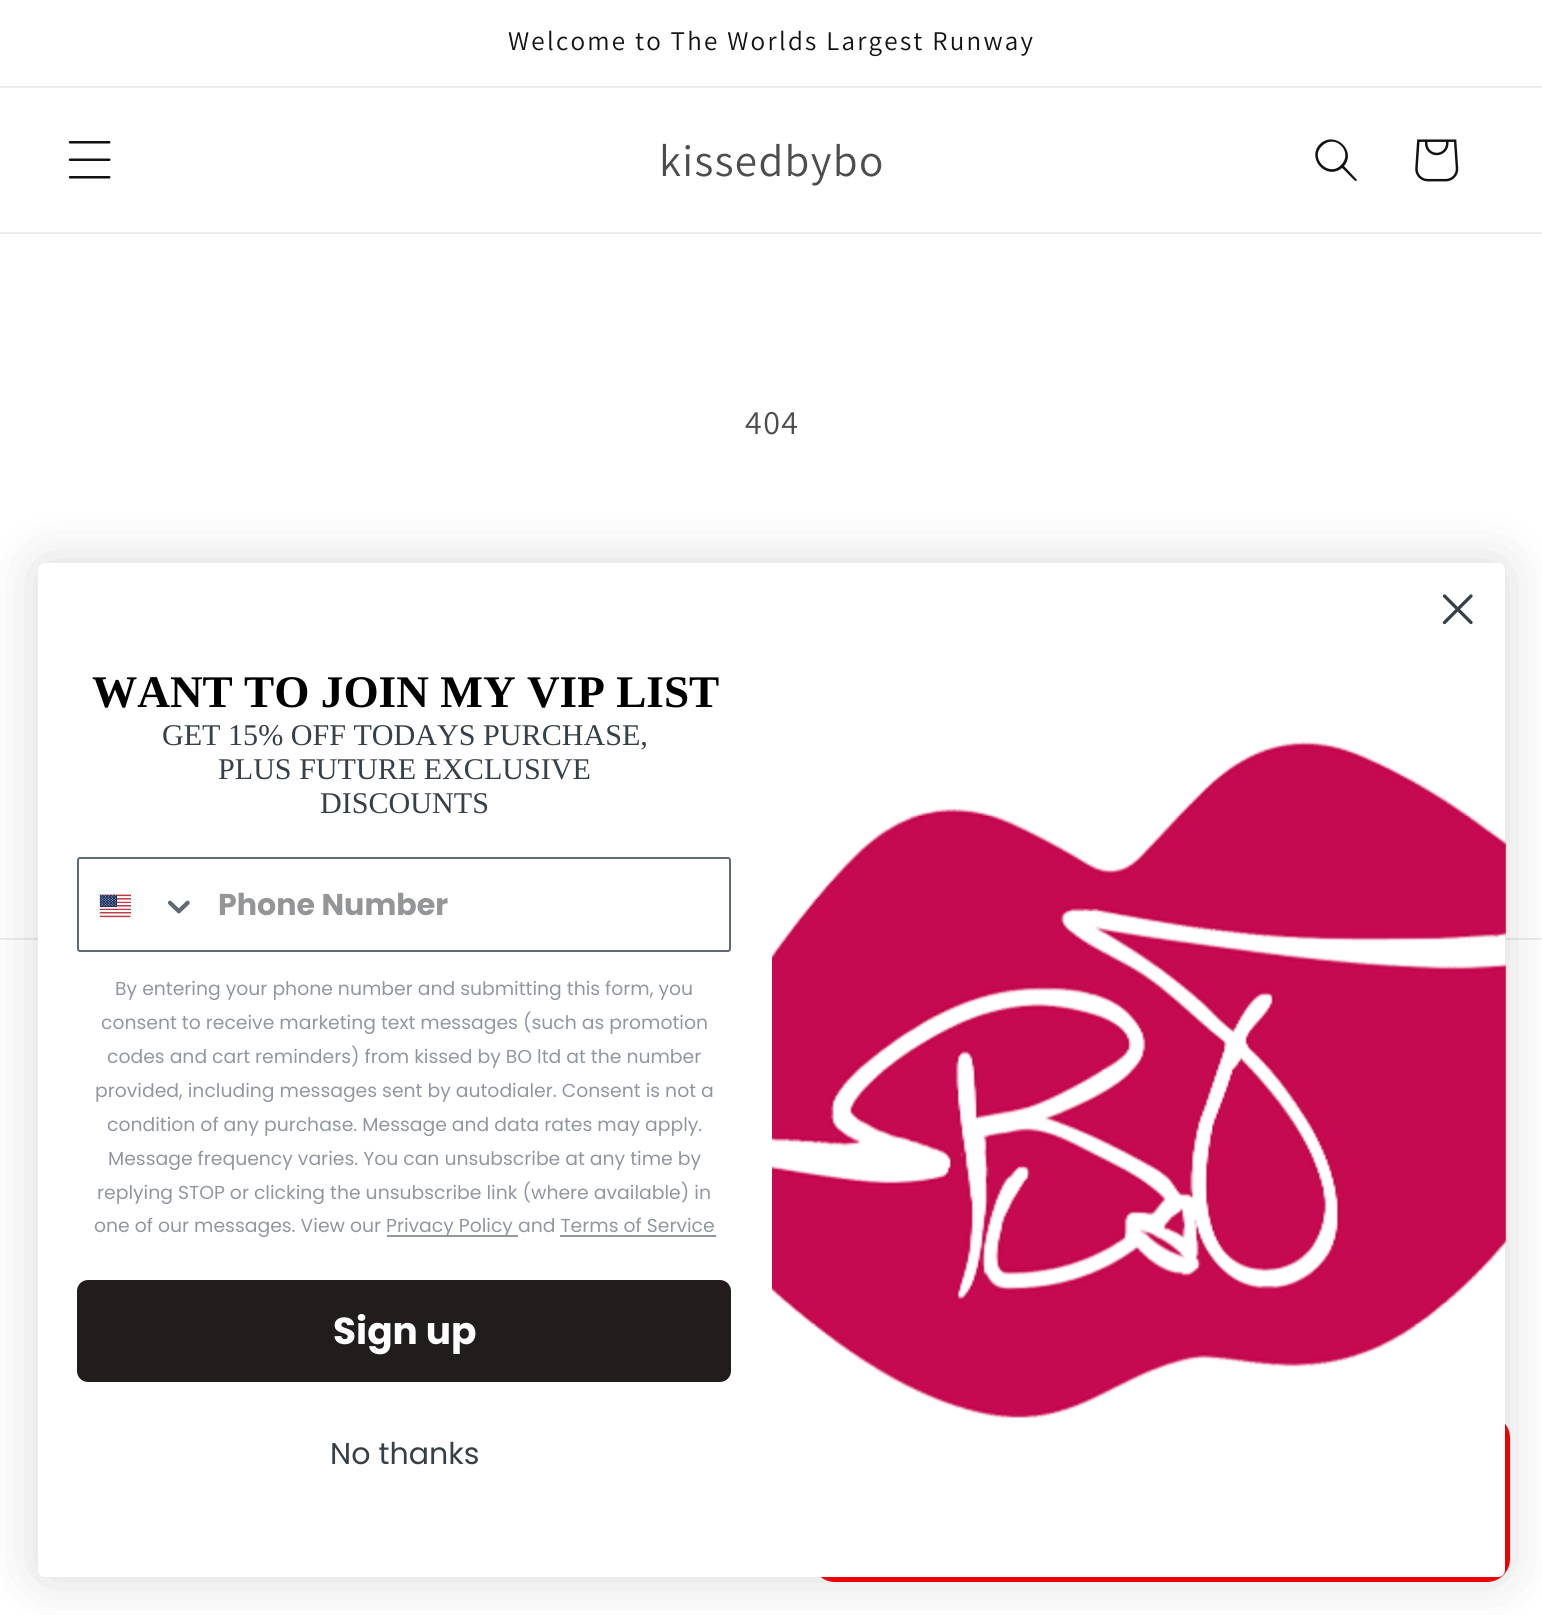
import math
import cairocffi as cairo

surface = cairo.ImageSurface(cairo.FORMAT_RGB24, 1542, 1615)
cr = cairo.Context(surface)
options = cairo.FontOptions()
options.set_hint_metrics(cairo.HINT_METRICS_OFF)
options.set_hint_style(cairo.HINT_STYLE_NONE)
cr.set_font_options(options)
cr.set_miter_limit(4)


def use_color(code):
    cr.set_source_rgb(*(v / 255 for v in bytes.fromhex(code[-6:])))


def spaced_text(x, y, s, letter, word):
    cr.move_to(x, y)
    for ch in s:
        cr.show_text(ch)
        cr.rel_move_to(letter + word * (ch == ' '), 0)


def round_rect(x, y, w, h, r):
    cr.new_sub_path()
    for i, (u, v) in enumerate([(x + w - r, y + h - r), (x + r, y + h - r), (x + r, y + r), (x + w - r, y + r)]):
        cr.arc(u, v, r, i * math.pi / 2, (i + 1) * math.pi / 2)
    cr.close_path()


def shadow(x, y, w, h, r, blur, alpha):
    cr.push_group_with_content(cairo.CONTENT_ALPHA)
    cr.set_operator(cairo.OPERATOR_SOURCE)
    for i in range(15, -16, -2):
        e = blur * i / 6
        if min(w, h) + 2 * e > 0:
            cr.set_source_rgba(0, 0, 0, alpha * math.erfc((i - 1) / 8.5) / 2)
            round_rect(x - e, y - e, w + 2 * e, h + 2 * e, max(0, min(r + e + blur * .6, min(w, h) / 2 + e)))
            cr.fill()
    cr.mask(cr.pop_group())


def picture(path, x, y, w, h):
    cr.save()
    cr.set_source_surface(cairo.ImageSurface.create_from_png(path), x, y)
    cr.rectangle(x, y, w, h)
    cr.fill()
    cr.restore()


use_color("#ffffff")
cr.paint()
use_color("#ececec")
cr.rectangle(0, 86, 1542, 2)
cr.fill()
cr.select_font_face("Assistant")
cr.set_font_size(27)
use_color("#121212")
spaced_text(508, 50, "Welcome to The Worlds Largest Runway", 2.25, 0)
use_color("#ececec")
cr.rectangle(0, 232, 1542, 2)
cr.fill()
picture("img1.png", 68, 141, 43, 38)
cr.set_font_size(45)
use_color("#4d4d4d")
spaced_text(659, 176, "kissedbybo", 1.4, 0)
use_color("#121212")
cr.set_fill_rule(cairo.FILL_RULE_EVEN_ODD)
cr.new_path()
cr.move_to(1341, 165)
cr.curve_to(1329, 178, 1309, 158, 1322, 146)
cr.curve_to(1335, 133, 1354, 152, 1341, 165)
cr.close_path()
cr.move_to(1342, 168)
cr.curve_to(1326, 181, 1306, 158, 1320, 144)
cr.curve_to(1335, 130, 1357, 151, 1344, 166)
cr.line_to(1357, 180)
cr.line_to(1356, 181)
cr.curve_to(1355, 182, 1344, 169, 1342, 168)
cr.close_path()
cr.fill()
picture("img2.png", 1415, 139, 44, 43)
cr.set_font_size(34)
use_color("#4d4d4d")
spaced_text(745, 434, "404", 1.4, 0)
use_color("#ececec")
cr.rectangle(0, 938, 1542, 2)
cr.fill()
use_color("#ff0000")
round_rect(812, 1415, 698, 167, 23)
cr.fill()
use_color("#000000")
shadow(38, 563, 1467, 1014, 7, 28, 0.15)
use_color("#ffffff")
round_rect(38, 563, 1467, 1014, 7)
cr.fill()
cr.new_path()
cr.move_to(1444.5, 596)
cr.line_to(1471, 622.5)
cr.move_to(1444.5, 622.5)
cr.line_to(1471, 596)
cr.close_path()
use_color("#373f47")
cr.set_line_width(3.3)
cr.set_line_cap(cairo.LINE_CAP_ROUND)
cr.set_line_join(cairo.LINE_JOIN_ROUND)
cr.stroke()
cr.select_font_face("Liberation Serif", cairo.FONT_SLANT_NORMAL, cairo.FONT_WEIGHT_BOLD)
cr.set_font_size(45.25)
use_color("#000000")
cr.move_to(92, 707)
cr.show_text("WANT TO JOIN MY VIP LIST")
cr.select_font_face("Liberation Serif")
cr.set_font_size(30.1)
use_color("#373f47")
cr.move_to(162, 745)
cr.show_text("GET 15% OFF TODAYS PURCHASE,")
cr.move_to(218, 779)
cr.show_text("PLUS FUTURE EXCLUSIVE")
cr.move_to(320, 813)
cr.show_text("DISCOUNTS")
round_rect(78, 858, 652, 93, 2)
use_color("#606a72")
cr.set_line_width(2)
cr.set_line_cap(cairo.LINE_CAP_BUTT)
cr.set_line_join(cairo.LINE_JOIN_MITER)
cr.stroke()
picture("img3.png", 99, 894, 32, 24)
picture("img4.png", 167, 900, 23, 14)
cr.select_font_face("Poppins", cairo.FONT_SLANT_NORMAL, cairo.FONT_WEIGHT_BOLD)
use_color("#949596")
cr.move_to(218, 915)
cr.show_text("Phone Number")
cr.select_font_face("Poppins")
cr.set_font_size(18.8)
use_color("#91979f")
cr.move_to(115, 995)
cr.show_text("By entering your phone number and submitting this form, you")
cr.move_to(101, 1029)
cr.show_text("consent to receive marketing text messages (such as promotion")
cr.move_to(107, 1063)
cr.show_text("codes and cart reminders) from kissed by BO ltd at the number")
cr.move_to(95, 1097)
cr.show_text("provided, including messages sent by autodialer. Consent is not a")
cr.move_to(107, 1131)
cr.show_text("condition of any purchase. Message and data rates may apply.")
cr.move_to(108, 1165)
cr.show_text("Message frequency varies. You can unsubscribe at any time by")
cr.move_to(97, 1199)
cr.show_text("replying STOP or clicking the unsubscribe link (where available) in")
cr.move_to(94, 1232)
cr.show_text("one of our messages. View our")
cr.rectangle(387, 1235, 131, 2)
cr.fill()
cr.move_to(386, 1232)
cr.show_text("Privacy Policy and Terms of Service")
cr.rectangle(560, 1235, 156, 2)
cr.fill()
use_color("#211d1c")
round_rect(82.5, 1285.5, 643, 91, 5.5)
cr.fill_preserve()
cr.set_line_width(11)
cr.stroke()
cr.select_font_face("Poppins", cairo.FONT_SLANT_NORMAL, cairo.FONT_WEIGHT_BOLD)
cr.set_font_size(37.5)
use_color("#ffffff")
cr.move_to(333, 1344)
cr.show_text("Sign up")
cr.select_font_face("Poppins")
cr.set_font_size(30.1)
use_color("#373f47")
cr.move_to(330, 1464)
cr.show_text("No thanks")
picture("img5.png", 772, 741, 735, 678)
surface.write_to_png("result.png")
